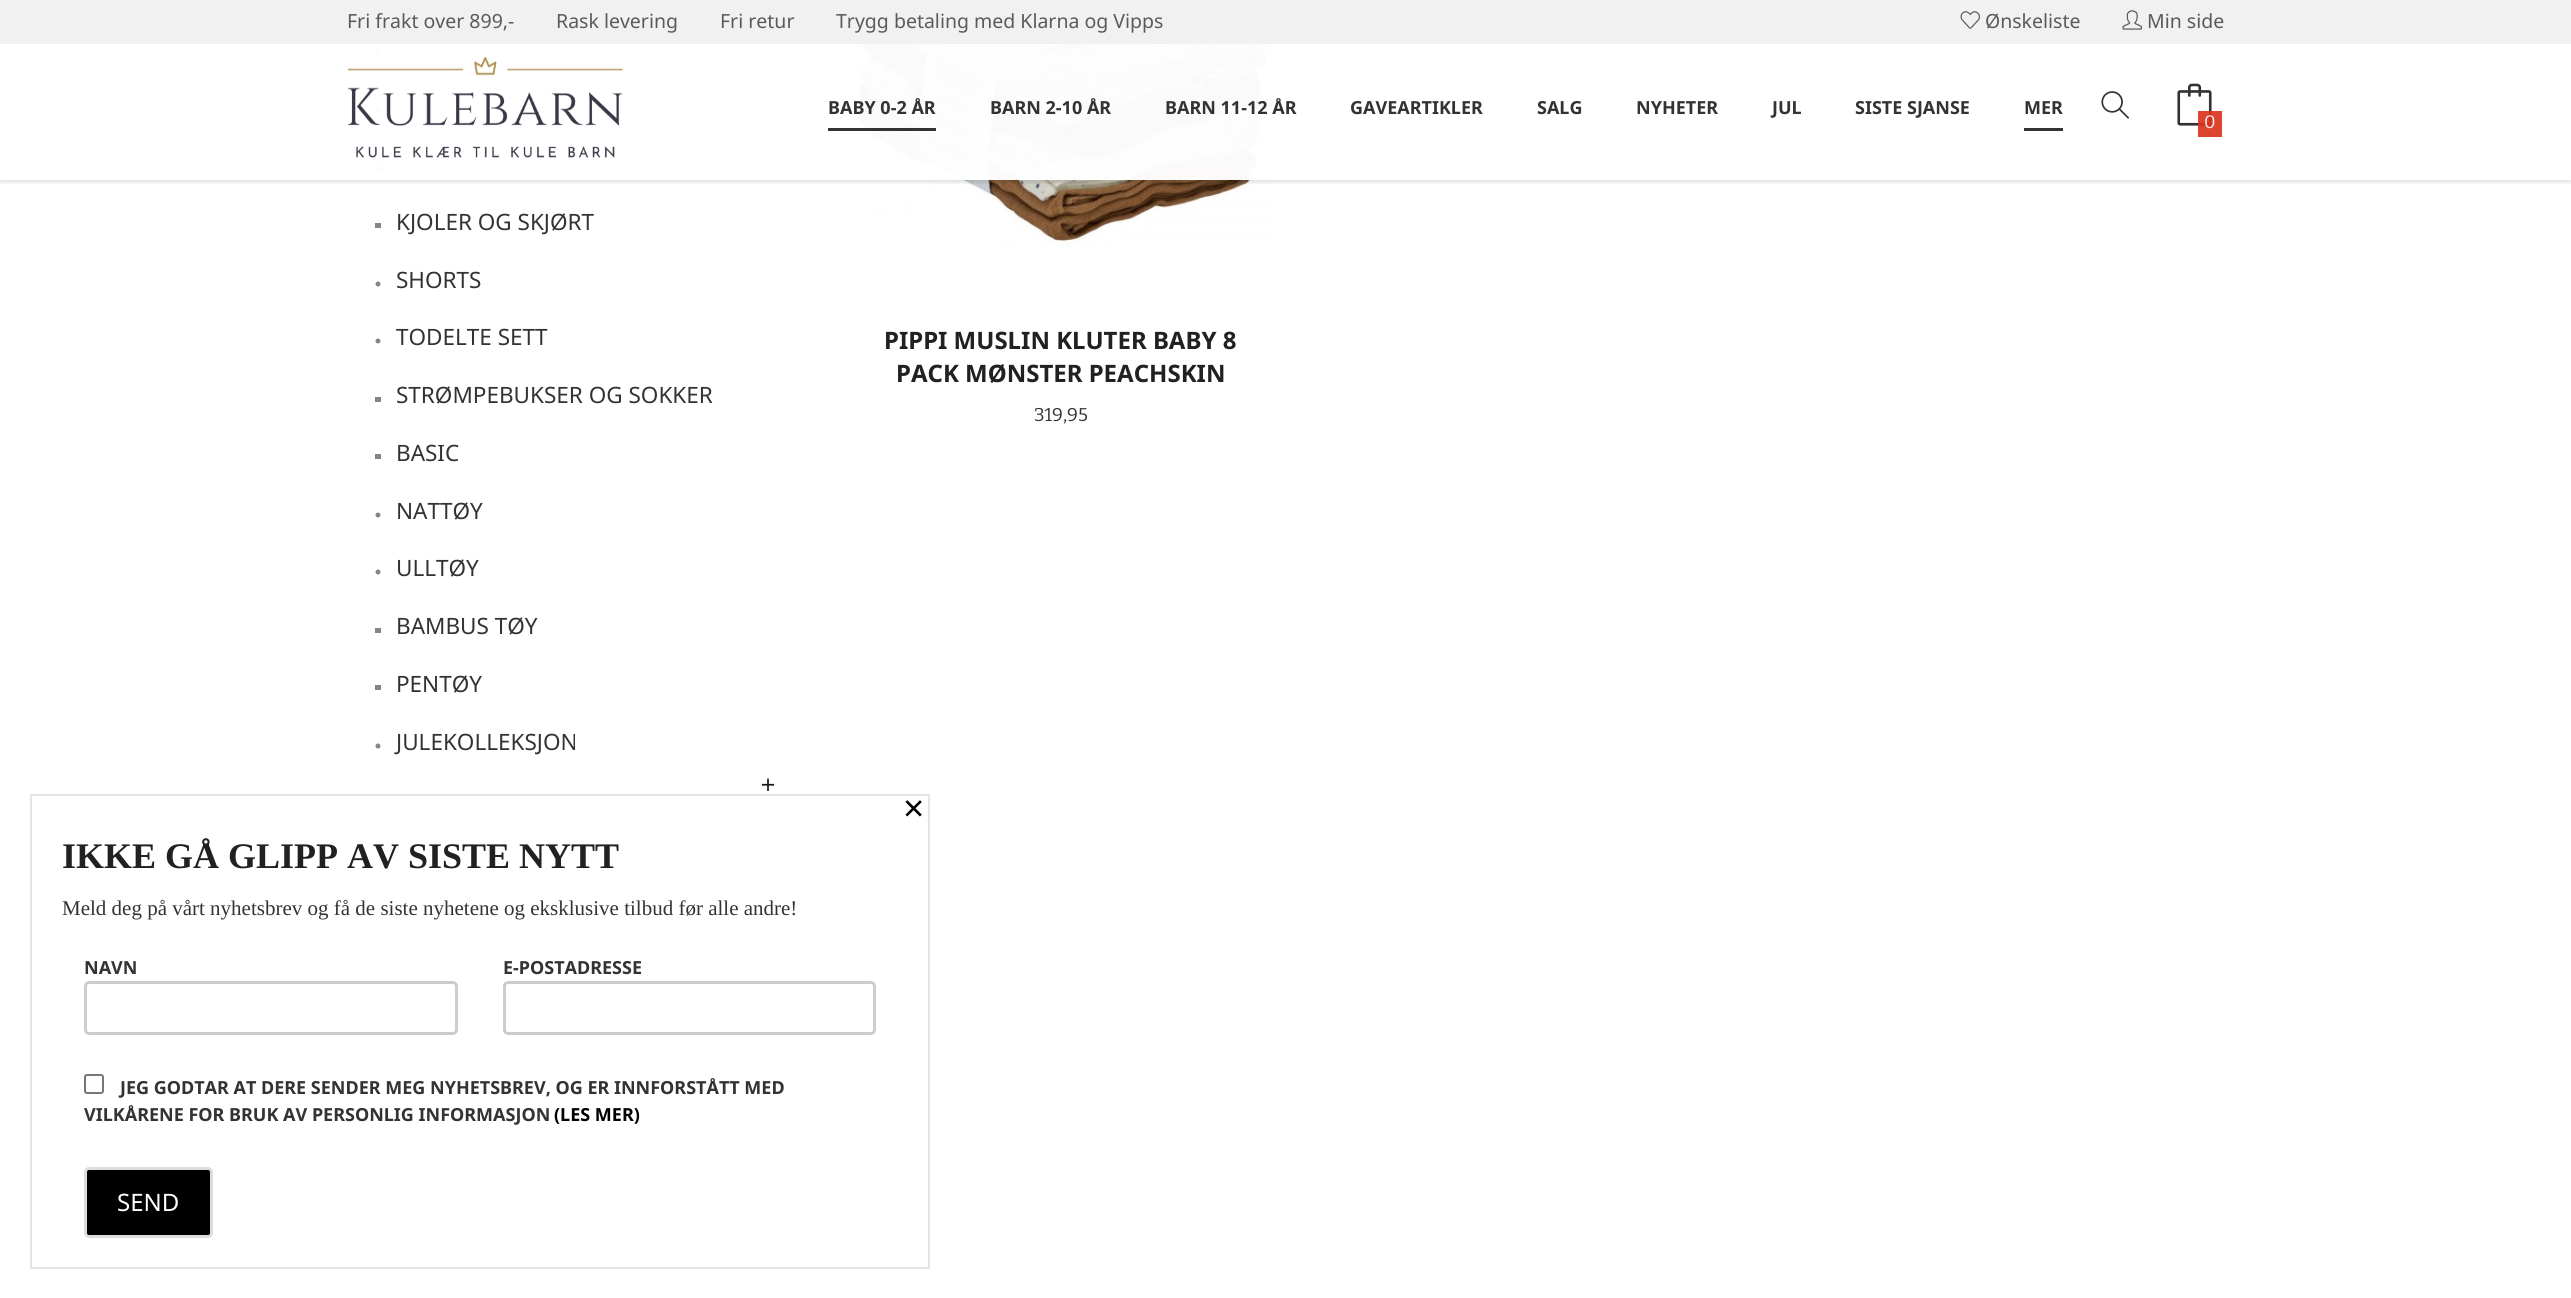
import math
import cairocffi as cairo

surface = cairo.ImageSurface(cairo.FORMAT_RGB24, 2571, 1298)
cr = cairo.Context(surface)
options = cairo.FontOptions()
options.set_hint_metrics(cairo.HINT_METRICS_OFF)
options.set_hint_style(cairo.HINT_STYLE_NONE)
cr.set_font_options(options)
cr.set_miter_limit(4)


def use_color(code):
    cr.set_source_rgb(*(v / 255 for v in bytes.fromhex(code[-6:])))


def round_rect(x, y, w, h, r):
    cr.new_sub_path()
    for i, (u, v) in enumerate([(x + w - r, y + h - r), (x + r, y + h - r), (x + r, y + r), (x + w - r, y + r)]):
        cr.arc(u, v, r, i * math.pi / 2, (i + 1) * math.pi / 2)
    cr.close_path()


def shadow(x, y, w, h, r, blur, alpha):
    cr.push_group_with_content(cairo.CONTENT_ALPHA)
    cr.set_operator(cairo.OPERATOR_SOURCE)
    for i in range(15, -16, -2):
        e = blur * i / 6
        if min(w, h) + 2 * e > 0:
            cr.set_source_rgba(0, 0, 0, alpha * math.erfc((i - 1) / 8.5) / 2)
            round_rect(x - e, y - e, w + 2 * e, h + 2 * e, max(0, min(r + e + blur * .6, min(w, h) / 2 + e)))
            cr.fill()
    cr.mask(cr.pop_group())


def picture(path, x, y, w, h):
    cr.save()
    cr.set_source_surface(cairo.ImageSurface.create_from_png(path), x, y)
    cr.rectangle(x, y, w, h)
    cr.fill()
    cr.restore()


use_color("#ffffff")
cr.paint()
picture("img6.png", 375, 50, 6, 6)
picture("img6.png", 375, 107, 6, 6)
use_color("#858585")
cr.rectangle(375, 166, 6, 5)
cr.fill()
picture("img8.png", 851, 44, 418, 202)
cr.save()
cr.rectangle(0, 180, 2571, 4)
cr.clip()
use_color("#000000")
shadow(0, 3, 2571, 180, 0, 1.5, 0.1)
cr.restore()
cr.set_source_rgba(1, 1, 1, 0.97)
cr.rectangle(375, 44, 894, 136)
cr.fill()
use_color("#f1f1f1")
cr.rectangle(0, 0, 2571, 44)
cr.fill()
cr.select_font_face("Noto Sans")
cr.set_font_size(19.5)
use_color("#5a5a5a")
cr.move_to(347, 28)
cr.show_text("Fri frakt over 899,-")
cr.move_to(556, 28)
cr.show_text("Rask levering")
cr.move_to(720, 28)
cr.show_text("Fri retur")
cr.move_to(836, 28)
cr.show_text("Trygg betaling med Klarna og Vipps")
picture("img1.png", 1960, 11, 20, 18)
cr.move_to(1985, 28)
cr.show_text("Ønskeliste")
picture("img2.png", 2122, 10, 20, 20)
cr.move_to(2147, 28)
cr.show_text("Min side")
picture("img3.png", 348, 57, 275, 101)
use_color("#333333")
cr.rectangle(828, 128, 108, 3)
cr.fill()
cr.select_font_face("Noto Sans", cairo.FONT_SLANT_NORMAL, cairo.FONT_WEIGHT_BOLD)
cr.set_font_size(18)
cr.move_to(828, 114)
cr.show_text("BABY 0-2 ÅR")
cr.move_to(990, 114)
cr.show_text("BARN 2-10 ÅR")
cr.move_to(1165, 114)
cr.show_text("BARN 11-12 ÅR")
cr.move_to(1350, 114)
cr.show_text("GAVEARTIKLER")
cr.move_to(1537, 114)
cr.show_text("SALG")
cr.move_to(1636, 114)
cr.show_text("NYHETER")
cr.move_to(1772, 114)
cr.show_text("JUL")
cr.move_to(1855, 114)
cr.show_text("SISTE SJANSE")
cr.rectangle(2024, 128, 39, 3)
cr.fill()
cr.move_to(2024, 114)
cr.show_text("MER")
picture("img4.png", 2101, 91, 28, 28)
picture("img5.png", 2177, 83, 35, 43)
cr.set_source_rgba(0.859, 0.192, 0.106, 0.9)
cr.rectangle(2198, 111, 24, 26)
cr.fill()
cr.select_font_face("Bitter")
use_color("#fbecea")
cr.move_to(2204, 128)
cr.show_text("0")
use_color("#858585")
cr.rectangle(375, 223, 6, 5)
cr.fill()
cr.select_font_face("Noto Sans")
cr.set_font_size(22.5)
use_color("#333333")
cr.move_to(396, 230)
cr.show_text("KJOLER OG SKJØRT")
picture("img6.png", 375, 281, 6, 6)
cr.move_to(396, 288)
cr.show_text("SHORTS")
picture("img6.png", 375, 338, 6, 6)
cr.move_to(396, 345)
cr.show_text("TODELTE SETT")
use_color("#858585")
cr.rectangle(375, 397, 6, 5)
cr.fill()
use_color("#333333")
cr.move_to(396, 403)
cr.show_text("STRØMPEBUKSER OG SOKKER")
use_color("#858585")
cr.rectangle(375, 454, 6, 5)
cr.fill()
use_color("#333333")
cr.move_to(396, 461)
cr.show_text("BASIC")
picture("img6.png", 375, 512, 6, 6)
cr.move_to(396, 519)
cr.show_text("NATTØY")
picture("img6.png", 375, 569, 6, 6)
cr.move_to(396, 576)
cr.show_text("ULLTØY")
use_color("#858585")
cr.rectangle(375, 628, 6, 5)
cr.fill()
use_color("#333333")
cr.move_to(396, 634)
cr.show_text("BAMBUS TØY")
use_color("#858585")
cr.rectangle(375, 685, 6, 5)
cr.fill()
use_color("#333333")
cr.move_to(396, 692)
cr.show_text("PENTØY")
picture("img6.png", 375, 743, 6, 6)
cr.move_to(396, 750)
cr.show_text("JULEKOLLEKSJON")
picture("img7.png", 761, 778, 14, 13)
cr.select_font_face("Noto Sans", cairo.FONT_SLANT_NORMAL, cairo.FONT_WEIGHT_BOLD)
cr.set_font_size(24)
use_color("#212121")
cr.move_to(884, 349)
cr.show_text("PIPPI MUSLIN KLUTER BABY 8")
cr.move_to(896, 382)
cr.show_text("PACK MØNSTER PEACHSKIN")
cr.select_font_face("Bitter")
cr.set_font_size(18.5)
use_color("#333333")
cr.move_to(1034, 421)
cr.show_text("319,95")
cr.rectangle(31, 795, 898, 473)
use_color("#e4e4e4")
cr.stroke()
cr.set_font_size(42)
use_color("#000000")
cr.move_to(903, 823)
cr.show_text("×")
cr.select_font_face("Liberation Serif", cairo.FONT_SLANT_NORMAL, cairo.FONT_WEIGHT_BOLD)
cr.set_font_size(36)
use_color("#212121")
cr.move_to(62, 868)
cr.show_text("IKKE GÅ GLIPP AV SISTE NYTT")
cr.select_font_face("Liberation Serif")
cr.set_font_size(21)
use_color("#333333")
cr.move_to(62, 915)
cr.show_text("Meld deg på vårt nyhetsbrev og få de siste nyhetene og eksklusive tilbud før alle andre!")
cr.select_font_face("Noto Sans", cairo.FONT_SLANT_NORMAL, cairo.FONT_WEIGHT_BOLD)
cr.set_font_size(18)
cr.move_to(84, 974)
cr.show_text("NAVN")
round_rect(85.5, 982.5, 371, 51, 3.5)
use_color("#cccccc")
cr.set_line_width(3)
cr.stroke()
use_color("#333333")
cr.move_to(503, 974)
cr.show_text("E-POSTADRESSE")
round_rect(504.5, 982.5, 370, 51, 3.5)
use_color("#cccccc")
cr.stroke()
round_rect(85, 1075, 18, 18, 2)
use_color("#767676")
cr.set_line_width(2)
cr.stroke()
use_color("#333333")
cr.move_to(120, 1094)
cr.show_text("JEG GODTAR AT DERE SENDER MEG NYHETSBREV, OG ER INNFORSTÅTT MED")
cr.move_to(84, 1121)
cr.show_text("VILKÅRENE FOR BRUK AV PERSONLIG INFORMASJON")
use_color("#000000")
cr.move_to(554, 1121)
cr.show_text("(LES MER)")
round_rect(85.5, 1168.5, 126, 68, 3.5)
cr.fill_preserve()
use_color("#dddddd")
cr.set_line_width(3)
cr.stroke()
cr.select_font_face("Noto Sans")
cr.set_font_size(24)
use_color("#ffffff")
cr.move_to(117, 1211)
cr.show_text("SEND")
surface.write_to_png("result.png")
